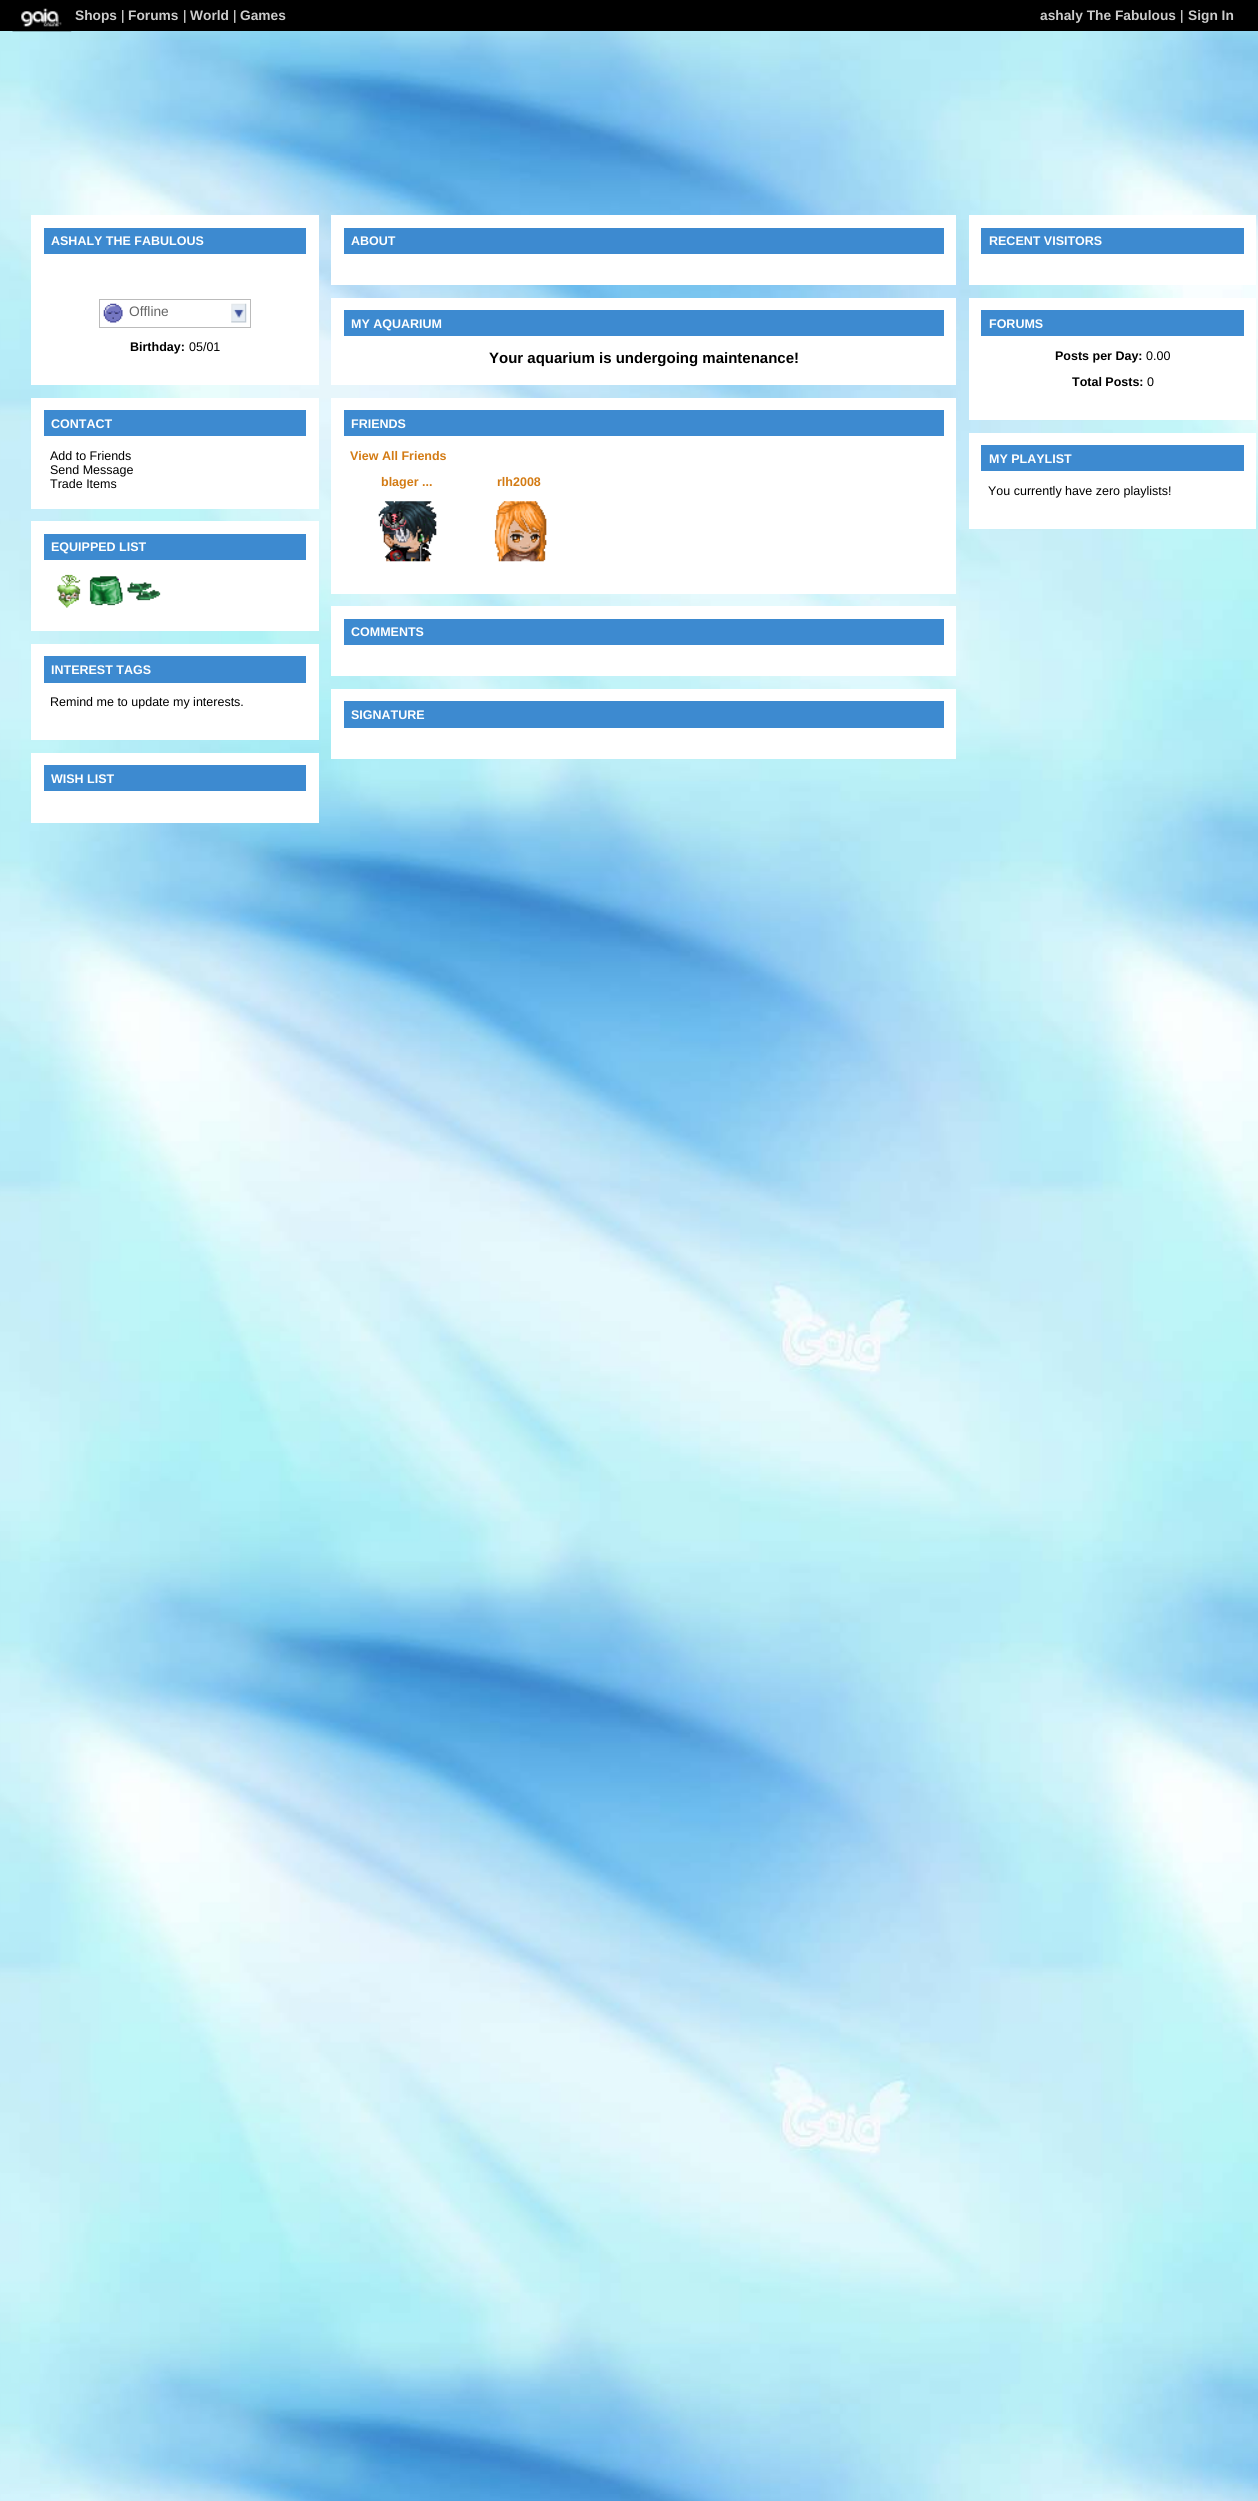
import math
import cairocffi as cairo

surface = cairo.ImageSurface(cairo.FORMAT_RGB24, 1258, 2501)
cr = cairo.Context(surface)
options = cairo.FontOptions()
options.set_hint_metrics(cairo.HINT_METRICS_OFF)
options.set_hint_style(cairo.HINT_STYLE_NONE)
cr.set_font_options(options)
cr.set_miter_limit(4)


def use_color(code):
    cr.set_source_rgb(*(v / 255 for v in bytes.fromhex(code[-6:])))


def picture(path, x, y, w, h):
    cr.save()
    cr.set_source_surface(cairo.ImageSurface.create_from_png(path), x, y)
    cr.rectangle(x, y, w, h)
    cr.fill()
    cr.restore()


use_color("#ffffff")
cr.paint()
picture("img1.png", 0, 31, 1258, 2470)
use_color("#000000")
cr.rectangle(0, 0, 1258, 31)
cr.fill()
picture("img2.png", 12, 8, 60, 24)
cr.select_font_face("Liberation Sans", cairo.FONT_SLANT_NORMAL, cairo.FONT_WEIGHT_BOLD)
cr.set_font_size(13.75)
use_color("#cccccc")
cr.move_to(75, 20)
cr.show_text("Shops")
cr.select_font_face("Liberation Sans")
use_color("#ffffff")
cr.move_to(121, 20)
cr.show_text("|")
cr.select_font_face("Liberation Sans", cairo.FONT_SLANT_NORMAL, cairo.FONT_WEIGHT_BOLD)
use_color("#cccccc")
cr.move_to(128, 20)
cr.show_text("Forums")
cr.select_font_face("Liberation Sans")
use_color("#ffffff")
cr.move_to(183, 20)
cr.show_text("|")
cr.select_font_face("Liberation Sans", cairo.FONT_SLANT_NORMAL, cairo.FONT_WEIGHT_BOLD)
use_color("#cccccc")
cr.move_to(190, 20)
cr.show_text("World")
cr.select_font_face("Liberation Sans")
use_color("#ffffff")
cr.move_to(233, 20)
cr.show_text("|")
cr.select_font_face("Liberation Sans", cairo.FONT_SLANT_NORMAL, cairo.FONT_WEIGHT_BOLD)
use_color("#cccccc")
cr.move_to(240, 20)
cr.show_text("Games")
cr.move_to(1040, 20)
cr.show_text("ashaly The Fabulous")
cr.select_font_face("Liberation Sans")
use_color("#ffffff")
cr.move_to(1180, 20)
cr.show_text("|")
cr.select_font_face("Liberation Sans", cairo.FONT_SLANT_NORMAL, cairo.FONT_WEIGHT_BOLD)
use_color("#cccccc")
cr.move_to(1188, 20)
cr.show_text("Sign In")
use_color("#ffffff")
cr.rectangle(31, 215, 288, 170)
cr.fill()
use_color("#3d8ad0")
cr.rectangle(44, 228, 262, 26)
cr.fill()
cr.set_font_size(12.5)
use_color("#ffffff")
cr.move_to(51, 245)
cr.show_text("ASHALY THE FABULOUS")
cr.rectangle(99.5, 299.5, 151, 28)
use_color("#bbbbbb")
cr.set_line_width(1)
cr.stroke()
picture("img3.png", 231, 303, 16, 20)
picture("img4.png", 103, 303, 20, 20)
cr.select_font_face("Liberation Sans")
cr.set_font_size(13.75)
use_color("#666666")
cr.move_to(129, 316)
cr.show_text("Offline")
cr.select_font_face("Liberation Sans", cairo.FONT_SLANT_NORMAL, cairo.FONT_WEIGHT_BOLD)
cr.set_font_size(12.5)
use_color("#000000")
cr.move_to(130, 351)
cr.show_text("Birthday:")
cr.select_font_face("Liberation Sans")
cr.move_to(189, 351)
cr.show_text("05/01")
use_color("#ffffff")
cr.rectangle(31, 398, 288, 111)
cr.fill()
use_color("#3d8ad0")
cr.rectangle(44, 410, 262, 26)
cr.fill()
cr.select_font_face("Liberation Sans", cairo.FONT_SLANT_NORMAL, cairo.FONT_WEIGHT_BOLD)
use_color("#ffffff")
cr.move_to(51, 428)
cr.show_text("CONTACT")
cr.select_font_face("Liberation Sans")
use_color("#000000")
cr.move_to(50, 460)
cr.show_text("Add to Friends")
cr.move_to(50, 474)
cr.show_text("Send Message")
cr.move_to(50, 488)
cr.show_text("Trade Items")
use_color("#ffffff")
cr.rectangle(31, 521, 288, 110)
cr.fill()
use_color("#3d8ad0")
cr.rectangle(44, 534, 262, 26)
cr.fill()
cr.select_font_face("Liberation Sans", cairo.FONT_SLANT_NORMAL, cairo.FONT_WEIGHT_BOLD)
use_color("#ffffff")
cr.move_to(51, 551)
cr.show_text("EQUIPPED LIST")
picture("img5.png", 57, 574, 24, 34)
picture("img6.png", 89, 576, 34, 30)
picture("img7.png", 127, 582, 34, 19)
cr.rectangle(31, 644, 288, 96)
cr.fill()
use_color("#3d8ad0")
cr.rectangle(44, 656, 262, 27)
cr.fill()
use_color("#ffffff")
cr.move_to(51, 674)
cr.show_text("INTEREST TAGS")
cr.select_font_face("Liberation Sans")
use_color("#000000")
cr.move_to(50, 706)
cr.show_text("Remind me to update my interests.")
use_color("#ffffff")
cr.rectangle(31, 753, 288, 70)
cr.fill()
use_color("#3d8ad0")
cr.rectangle(44, 765, 262, 26)
cr.fill()
cr.select_font_face("Liberation Sans", cairo.FONT_SLANT_NORMAL, cairo.FONT_WEIGHT_BOLD)
use_color("#ffffff")
cr.move_to(51, 783)
cr.show_text("WISH LIST")
cr.rectangle(331, 215, 625, 70)
cr.fill()
use_color("#3d8ad0")
cr.rectangle(344, 228, 600, 26)
cr.fill()
use_color("#ffffff")
cr.move_to(351, 245)
cr.show_text("ABOUT")
cr.rectangle(331, 298, 625, 87)
cr.fill()
use_color("#3d8ad0")
cr.rectangle(344, 310, 600, 26)
cr.fill()
use_color("#ffffff")
cr.move_to(351, 328)
cr.show_text("MY AQUARIUM")
cr.set_font_size(15)
use_color("#000000")
cr.move_to(489, 363)
cr.show_text("Your aquarium is undergoing maintenance!")
use_color("#ffffff")
cr.rectangle(331, 398, 625, 196)
cr.fill()
use_color("#3d8ad0")
cr.rectangle(344, 410, 600, 26)
cr.fill()
cr.set_font_size(12.5)
use_color("#ffffff")
cr.move_to(351, 428)
cr.show_text("FRIENDS")
use_color("#d37b14")
cr.move_to(350, 460)
cr.show_text("View All Friends")
cr.move_to(381, 486)
cr.show_text("blager ...")
picture("img8.png", 378, 501, 59, 61)
cr.move_to(497, 486)
cr.show_text("rlh2008")
picture("img9.png", 494, 501, 53, 61)
use_color("#ffffff")
cr.rectangle(331, 606, 625, 70)
cr.fill()
use_color("#3d8ad0")
cr.rectangle(344, 619, 600, 26)
cr.fill()
use_color("#ffffff")
cr.move_to(351, 636)
cr.show_text("COMMENTS")
cr.rectangle(331, 689, 625, 70)
cr.fill()
use_color("#3d8ad0")
cr.rectangle(344, 701, 600, 27)
cr.fill()
use_color("#ffffff")
cr.move_to(351, 719)
cr.show_text("SIGNATURE")
cr.rectangle(969, 215, 287, 70)
cr.fill()
use_color("#3d8ad0")
cr.rectangle(981, 228, 263, 26)
cr.fill()
use_color("#ffffff")
cr.move_to(989, 245)
cr.show_text("RECENT VISITORS")
cr.rectangle(969, 298, 287, 122)
cr.fill()
use_color("#3d8ad0")
cr.rectangle(981, 310, 263, 26)
cr.fill()
use_color("#ffffff")
cr.move_to(989, 328)
cr.show_text("FORUMS")
use_color("#000000")
cr.move_to(1055, 360)
cr.show_text("Posts per Day:")
cr.select_font_face("Liberation Sans")
cr.move_to(1146, 360)
cr.show_text("0.00")
cr.select_font_face("Liberation Sans", cairo.FONT_SLANT_NORMAL, cairo.FONT_WEIGHT_BOLD)
cr.move_to(1072, 386)
cr.show_text("Total Posts:")
cr.select_font_face("Liberation Sans")
cr.move_to(1147, 386)
cr.show_text("0")
use_color("#ffffff")
cr.rectangle(969, 433, 287, 96)
cr.fill()
use_color("#3d8ad0")
cr.rectangle(981, 445, 263, 26)
cr.fill()
cr.select_font_face("Liberation Sans", cairo.FONT_SLANT_NORMAL, cairo.FONT_WEIGHT_BOLD)
use_color("#ffffff")
cr.move_to(989, 463)
cr.show_text("MY PLAYLIST")
cr.select_font_face("Liberation Sans")
use_color("#000000")
cr.move_to(988, 495)
cr.show_text("You currently have zero playlists!")
surface.write_to_png("result.png")
